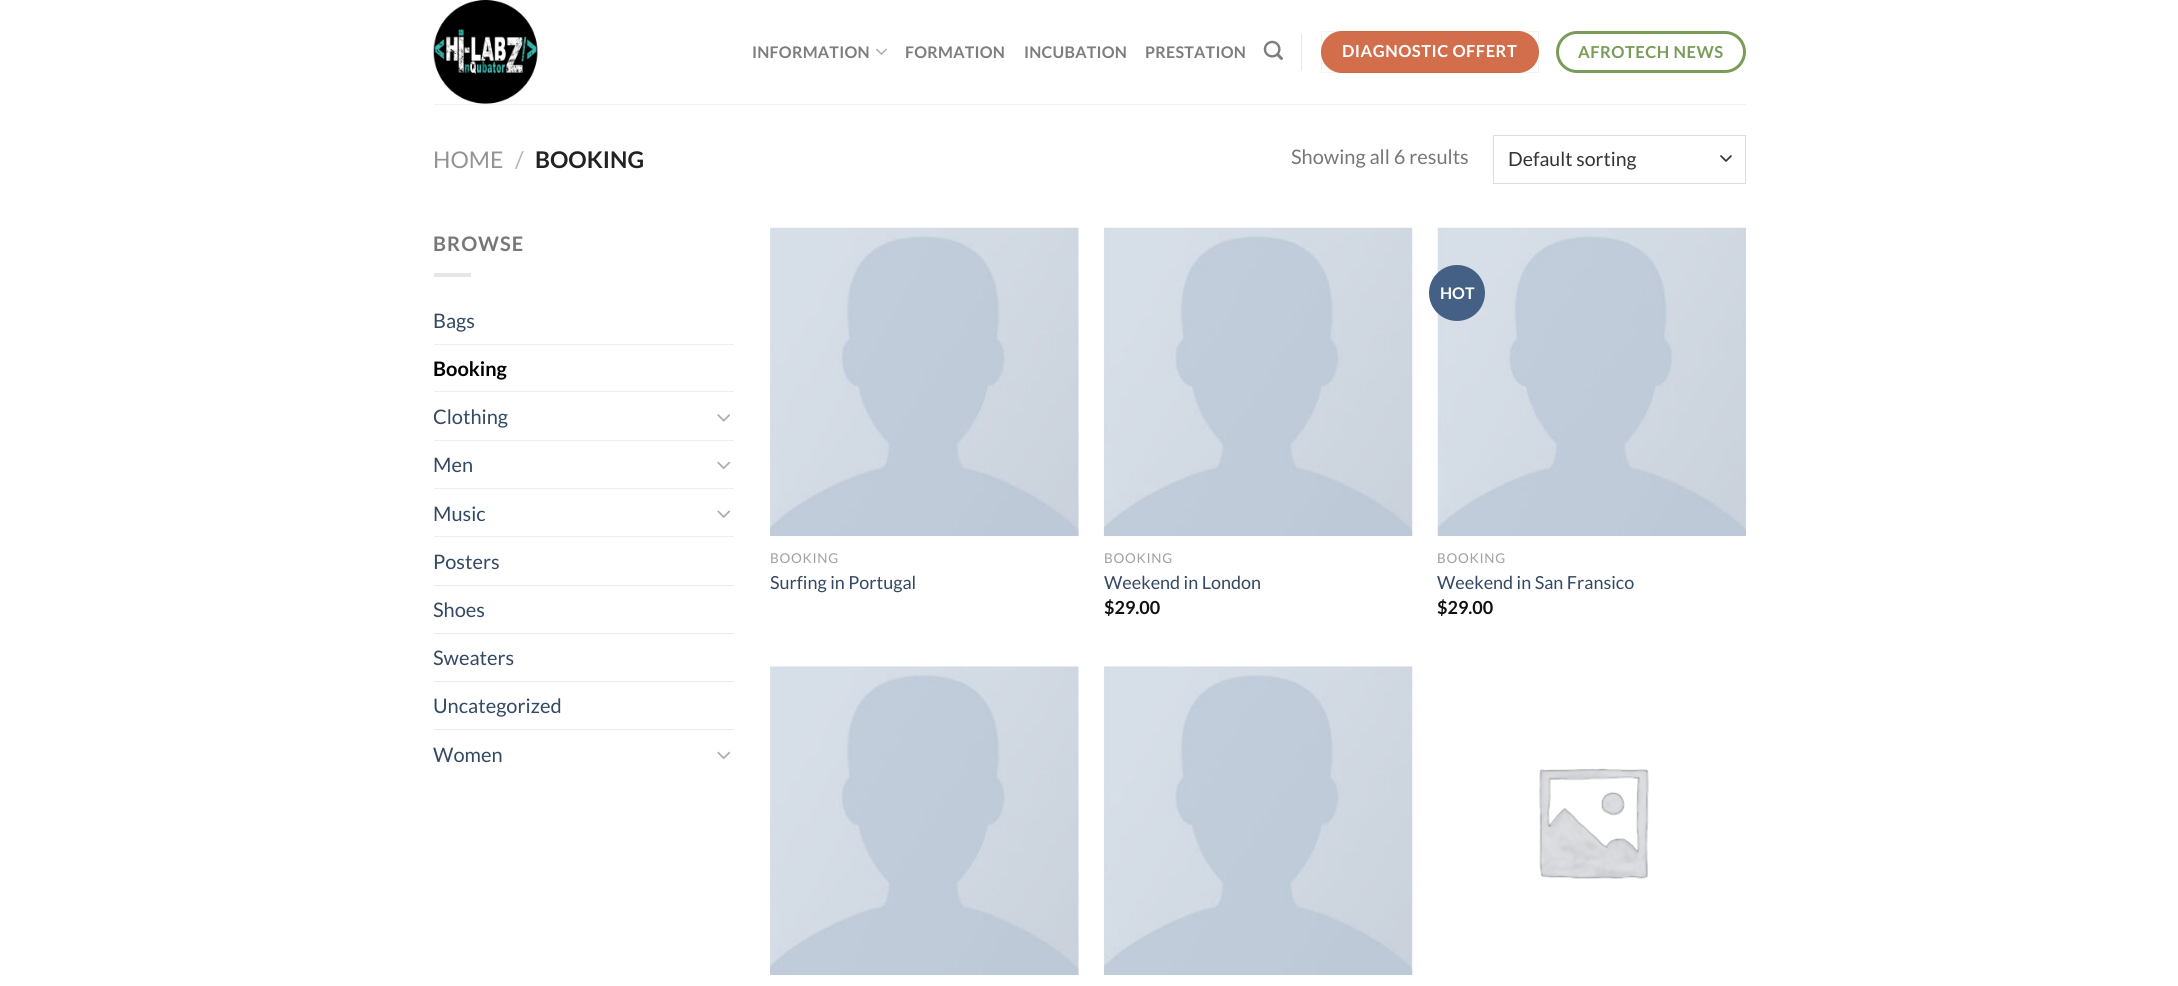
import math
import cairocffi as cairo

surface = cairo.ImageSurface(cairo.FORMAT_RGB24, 2178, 986)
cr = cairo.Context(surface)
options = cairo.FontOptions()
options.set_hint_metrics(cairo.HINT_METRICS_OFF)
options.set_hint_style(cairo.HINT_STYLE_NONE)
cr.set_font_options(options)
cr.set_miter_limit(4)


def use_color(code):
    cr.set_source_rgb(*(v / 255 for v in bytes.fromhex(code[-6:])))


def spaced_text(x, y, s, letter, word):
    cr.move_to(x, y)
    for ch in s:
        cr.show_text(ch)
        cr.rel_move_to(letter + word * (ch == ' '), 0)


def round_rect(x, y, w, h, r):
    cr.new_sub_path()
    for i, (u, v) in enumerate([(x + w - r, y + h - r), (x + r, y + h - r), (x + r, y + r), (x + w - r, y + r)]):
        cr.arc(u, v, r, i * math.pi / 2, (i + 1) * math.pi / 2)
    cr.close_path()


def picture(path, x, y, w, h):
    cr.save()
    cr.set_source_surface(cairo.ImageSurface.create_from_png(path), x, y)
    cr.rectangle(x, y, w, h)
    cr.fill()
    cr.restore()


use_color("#ffffff")
cr.paint()
picture("img1.png", 433, 0, 105, 104)
cr.select_font_face("Lato", cairo.FONT_SLANT_NORMAL, cairo.FONT_WEIGHT_BOLD)
cr.set_font_size(16)
use_color("#7d7d7d")
spaced_text(752, 58, "INFORMATION", 0.25, 0)
picture("img2.png", 876, 48, 11, 7)
spaced_text(905, 58, "FORMATION", 0.25, 0)
spaced_text(1024, 58, "INCUBATION", 0.25, 0)
spaced_text(1145, 58, "PRESTATION", 0.25, 0)
picture("img3.png", 1263, 40, 20, 20)
use_color("#e6e6e6")
cr.rectangle(1301, 34, 1, 37)
cr.fill()
use_color("#d26e4b")
round_rect(1321, 31, 218, 42, 21)
cr.fill()
cr.rectangle(1321.5, 31.5, 217, 41)
cr.set_source_rgba(0, 0, 0, 0.05)
cr.set_line_width(1)
cr.stroke()
cr.set_font_size(16.5)
use_color("#ffffff")
spaced_text(1342, 57, "DIAGNOSTIC OFFERT", 0.5, 0)
round_rect(1557.5, 32.5, 187, 39, 19.5)
use_color("#7a9c59")
cr.set_line_width(3)
cr.stroke()
spaced_text(1578, 58, "AFROTECH NEWS", 0.5, 0)
use_color("#f1f1f1")
cr.rectangle(434, 104, 1312, 1)
cr.fill()
cr.select_font_face("Lato")
cr.set_font_size(23)
use_color("#949494")
cr.move_to(433, 168)
cr.show_text("HOME")
use_color("#b2b2b2")
cr.move_to(515, 168)
cr.show_text("/")
cr.select_font_face("Lato", cairo.FONT_SLANT_NORMAL, cairo.FONT_WEIGHT_BOLD)
use_color("#222222")
cr.move_to(535, 168)
cr.show_text("BOOKING")
cr.select_font_face("Lato")
cr.set_font_size(20)
use_color("#777777")
cr.move_to(1291, 164)
cr.show_text("Showing all 6 results")
cr.new_path()
cr.move_to(1721, 156)
cr.line_to(1726, 161)
cr.line_to(1731, 156)
use_color("#333333")
cr.set_line_width(1.7)
cr.set_line_cap(cairo.LINE_CAP_ROUND)
cr.set_line_join(cairo.LINE_JOIN_ROUND)
cr.stroke()
cr.rectangle(1493.5, 135.5, 252, 48)
use_color("#dddddd")
cr.set_line_width(1)
cr.set_line_cap(cairo.LINE_CAP_BUTT)
cr.set_line_join(cairo.LINE_JOIN_MITER)
cr.stroke()
cr.set_font_size(19.5)
use_color("#333333")
cr.move_to(1508, 166)
cr.show_text("Default sorting")
cr.select_font_face("Lato", cairo.FONT_SLANT_NORMAL, cairo.FONT_WEIGHT_BOLD)
cr.set_font_size(20)
use_color("#777777")
spaced_text(433, 251, "BROWSE", 1, 0)
use_color("#e6e6e6")
cr.rectangle(434, 273, 37, 4)
cr.fill()
cr.select_font_face("Lato")
use_color("#334862")
cr.move_to(433, 328)
cr.show_text("Bags")
use_color("#ececec")
cr.rectangle(434, 344, 300, 1)
cr.fill()
cr.select_font_face("Lato", cairo.FONT_SLANT_NORMAL, cairo.FONT_WEIGHT_BOLD)
use_color("#000000")
cr.move_to(433, 376)
cr.show_text("Booking")
use_color("#ececec")
cr.rectangle(434, 391, 300, 1)
cr.fill()
cr.select_font_face("Lato")
use_color("#334862")
cr.move_to(433, 424)
cr.show_text("Clothing")
picture("img4.png", 717, 414, 14, 8)
use_color("#ececec")
cr.rectangle(434, 440, 300, 1)
cr.fill()
use_color("#334862")
cr.move_to(433, 472)
cr.show_text("Men")
picture("img5.png", 717, 461, 14, 9)
use_color("#ececec")
cr.rectangle(434, 488, 300, 1)
cr.fill()
use_color("#334862")
cr.move_to(433, 521)
cr.show_text("Music")
picture("img6.png", 717, 510, 14, 8)
use_color("#ececec")
cr.rectangle(434, 536, 300, 1)
cr.fill()
use_color("#334862")
cr.move_to(433, 569)
cr.show_text("Posters")
use_color("#ececec")
cr.rectangle(434, 585, 300, 1)
cr.fill()
use_color("#334862")
cr.move_to(433, 617)
cr.show_text("Shoes")
use_color("#ececec")
cr.rectangle(434, 633, 300, 1)
cr.fill()
use_color("#334862")
cr.move_to(433, 665)
cr.show_text("Sweaters")
use_color("#ececec")
cr.rectangle(434, 681, 300, 1)
cr.fill()
use_color("#334862")
cr.move_to(433, 713)
cr.show_text("Uncategorized")
use_color("#ececec")
cr.rectangle(434, 729, 300, 1)
cr.fill()
use_color("#334862")
cr.move_to(433, 762)
cr.show_text("Women")
picture("img5.png", 717, 751, 14, 9)
picture("img7.png", 770, 227, 309, 310)
cr.set_font_size(13.5)
use_color("#a0a0a0")
spaced_text(770, 563, "BOOKING", 0.75, 0)
cr.set_font_size(18)
use_color("#334862")
cr.move_to(770, 589)
cr.show_text("Surfing in Portugal")
picture("img8.png", 1103, 227, 310, 310)
cr.set_font_size(13.5)
use_color("#a0a0a0")
spaced_text(1104, 563, "BOOKING", 0.75, 0)
cr.set_font_size(18)
use_color("#334862")
cr.move_to(1104, 589)
cr.show_text("Weekend in London")
cr.select_font_face("Lato", cairo.FONT_SLANT_NORMAL, cairo.FONT_WEIGHT_BOLD)
use_color("#111111")
cr.move_to(1104, 614)
cr.show_text("$29.00")
picture("img9.png", 1437, 227, 310, 310)
use_color("#446084")
cr.arc(1457, 293, 28, 0, 2 * math.pi)
cr.fill()
cr.set_font_size(16)
use_color("#ffffff")
cr.move_to(1440, 299)
cr.show_text("HOT")
cr.select_font_face("Lato")
cr.set_font_size(13.5)
use_color("#a0a0a0")
spaced_text(1437, 563, "BOOKING", 0.75, 0)
cr.set_font_size(18)
use_color("#334862")
cr.move_to(1437, 589)
cr.show_text("Weekend in San Fransico")
cr.select_font_face("Lato", cairo.FONT_SLANT_NORMAL, cairo.FONT_WEIGHT_BOLD)
use_color("#111111")
cr.move_to(1437, 614)
cr.show_text("$29.00")
picture("img10.png", 770, 666, 309, 309)
picture("img11.png", 1103, 666, 310, 309)
picture("img12.png", 1539, 768, 110, 111)
surface.write_to_png("result.png")
